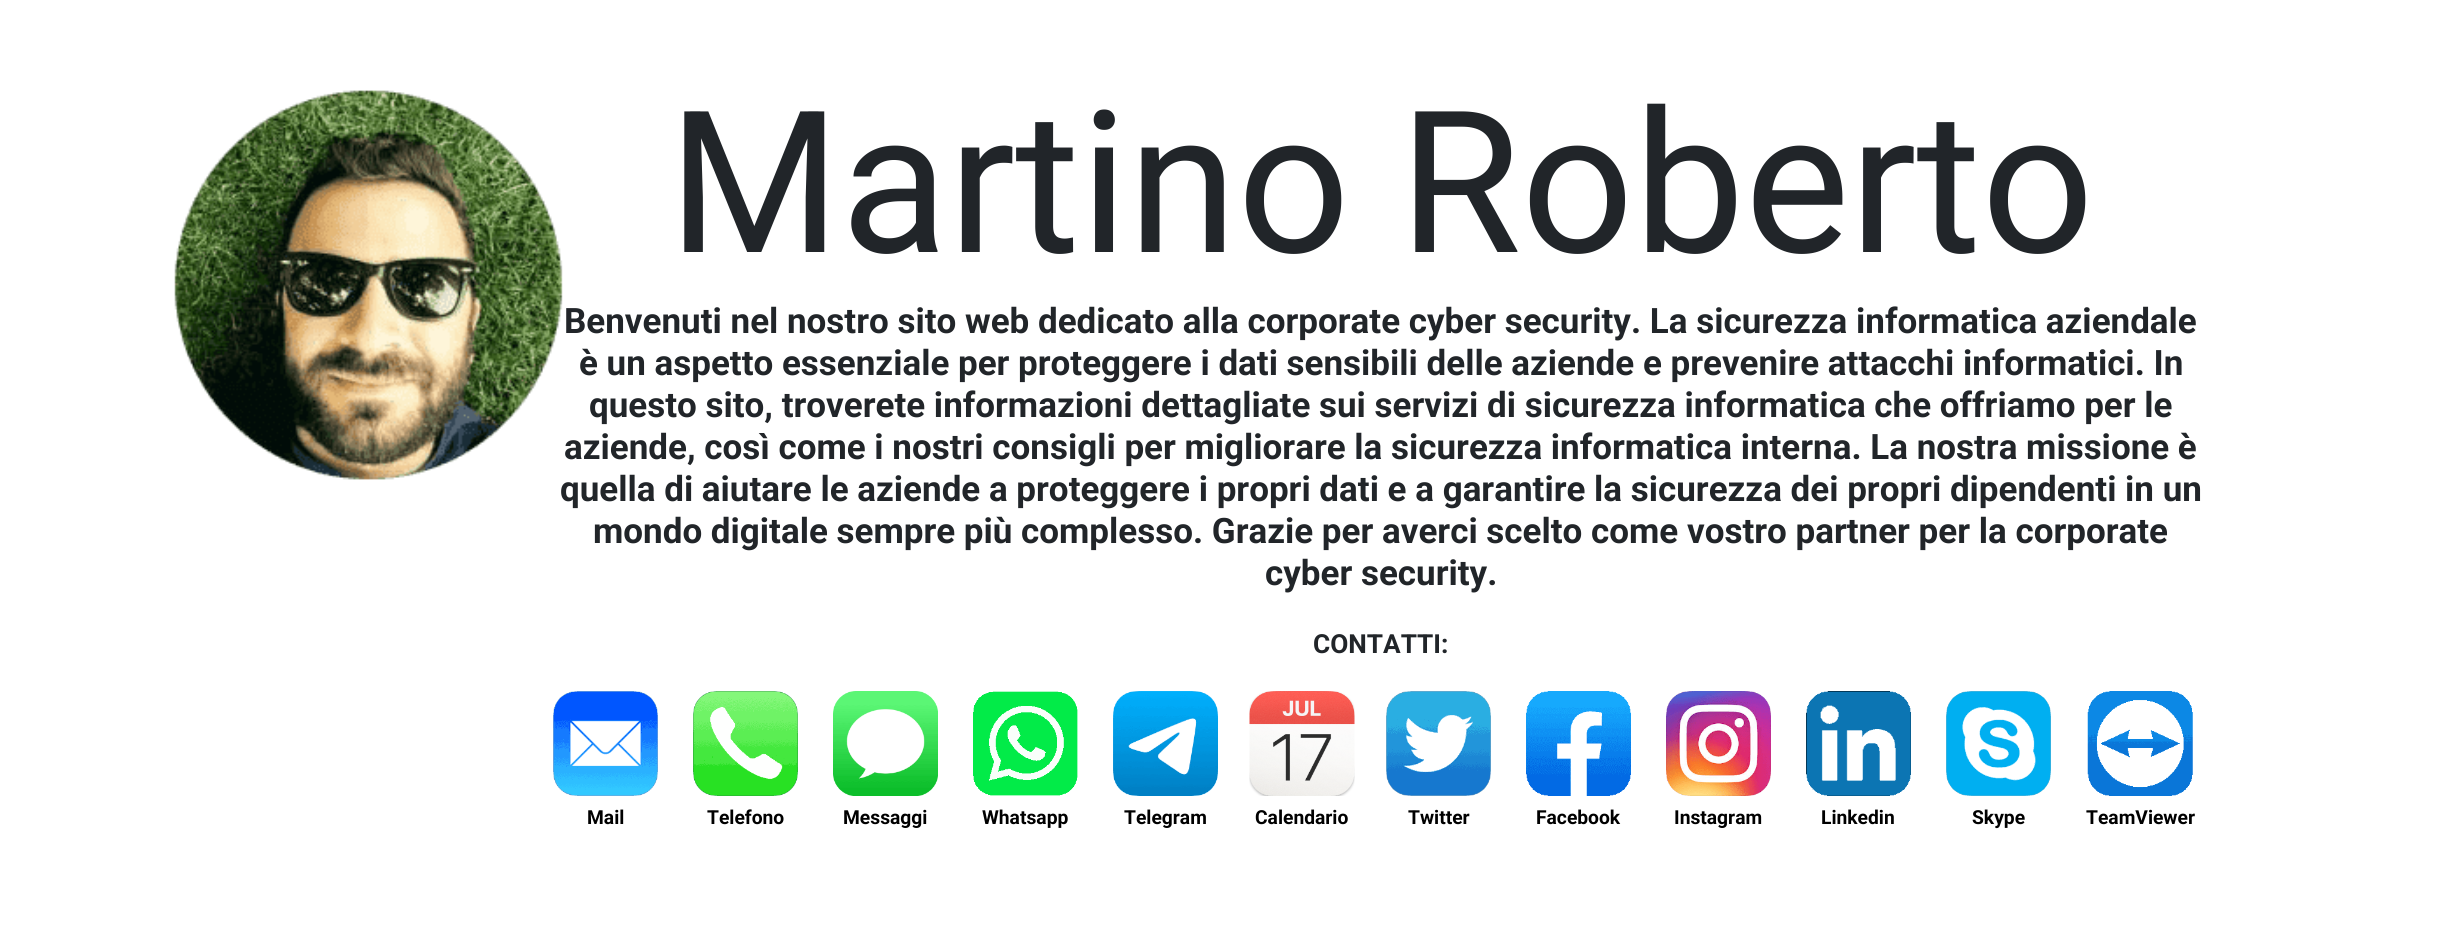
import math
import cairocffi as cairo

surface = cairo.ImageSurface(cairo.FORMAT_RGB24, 2445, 941)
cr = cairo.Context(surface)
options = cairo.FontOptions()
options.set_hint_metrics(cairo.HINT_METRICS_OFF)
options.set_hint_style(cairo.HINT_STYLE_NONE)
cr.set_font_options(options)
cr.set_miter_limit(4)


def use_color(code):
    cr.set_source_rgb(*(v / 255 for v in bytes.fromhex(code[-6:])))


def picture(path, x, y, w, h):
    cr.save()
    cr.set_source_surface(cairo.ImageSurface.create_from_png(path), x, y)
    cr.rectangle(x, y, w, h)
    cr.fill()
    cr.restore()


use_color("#ffffff")
cr.paint()
picture("img1.png", 174, 90, 389, 390)
cr.select_font_face("Roboto")
cr.set_font_size(197.75)
use_color("#212529")
cr.move_to(668, 252)
cr.show_text("Martino Roberto")
cr.select_font_face("Roboto", cairo.FONT_SLANT_NORMAL, cairo.FONT_WEIGHT_BOLD)
cr.set_font_size(35)
cr.move_to(564, 333)
cr.show_text("Benvenuti nel nostro sito web dedicato alla corporate cyber security. La sicurezza informatica aziendale")
cr.move_to(579, 375)
cr.show_text("è un aspetto essenziale per proteggere i dati sensibili delle aziende e prevenire attacchi informatici. In")
cr.move_to(589, 417)
cr.show_text("questo sito, troverete informazioni dettagliate sui servizi di sicurezza informatica che offriamo per le")
cr.move_to(564, 459)
cr.show_text("aziende, così come i nostri consigli per migliorare la sicurezza informatica interna. La nostra missione è")
cr.move_to(560, 501)
cr.show_text("quella di aiutare le aziende a proteggere i propri dati e a garantire la sicurezza dei propri dipendenti in un")
cr.move_to(593, 543)
cr.show_text("mondo digitale sempre più complesso. Grazie per averci scelto come vostro partner per la corporate")
cr.move_to(1265, 585)
cr.show_text("cyber security.")
cr.set_font_size(26.25)
cr.move_to(1313, 653)
cr.show_text("CONTATTI:")
picture("img2.png", 553, 691, 105, 105)
cr.set_font_size(19.25)
use_color("#000000")
cr.move_to(587, 824)
cr.show_text("Mail")
picture("img3.png", 693, 691, 105, 105)
cr.move_to(707, 824)
cr.show_text("Telefono")
picture("img4.png", 833, 691, 105, 105)
cr.move_to(843, 824)
cr.show_text("Messaggi")
picture("img5.png", 973, 691, 105, 105)
cr.move_to(982, 824)
cr.show_text("Whatsapp")
picture("img6.png", 1113, 691, 105, 105)
cr.move_to(1124, 824)
cr.show_text("Telegram")
picture("img7.png", 1249, 691, 106, 105)
cr.move_to(1255, 824)
cr.show_text("Calendario")
picture("img8.png", 1386, 691, 105, 105)
cr.move_to(1408, 824)
cr.show_text("Twitter")
picture("img9.png", 1526, 691, 105, 105)
cr.move_to(1536, 824)
cr.show_text("Facebook")
picture("img10.png", 1666, 691, 105, 105)
cr.move_to(1674, 824)
cr.show_text("Instagram")
picture("img11.png", 1806, 691, 105, 105)
cr.move_to(1821, 824)
cr.show_text("Linkedin")
picture("img12.png", 1946, 691, 105, 105)
cr.move_to(1972, 824)
cr.show_text("Skype")
picture("img13.png", 2087, 691, 106, 105)
cr.move_to(2086, 824)
cr.show_text("TeamViewer")
surface.write_to_png("result.png")
